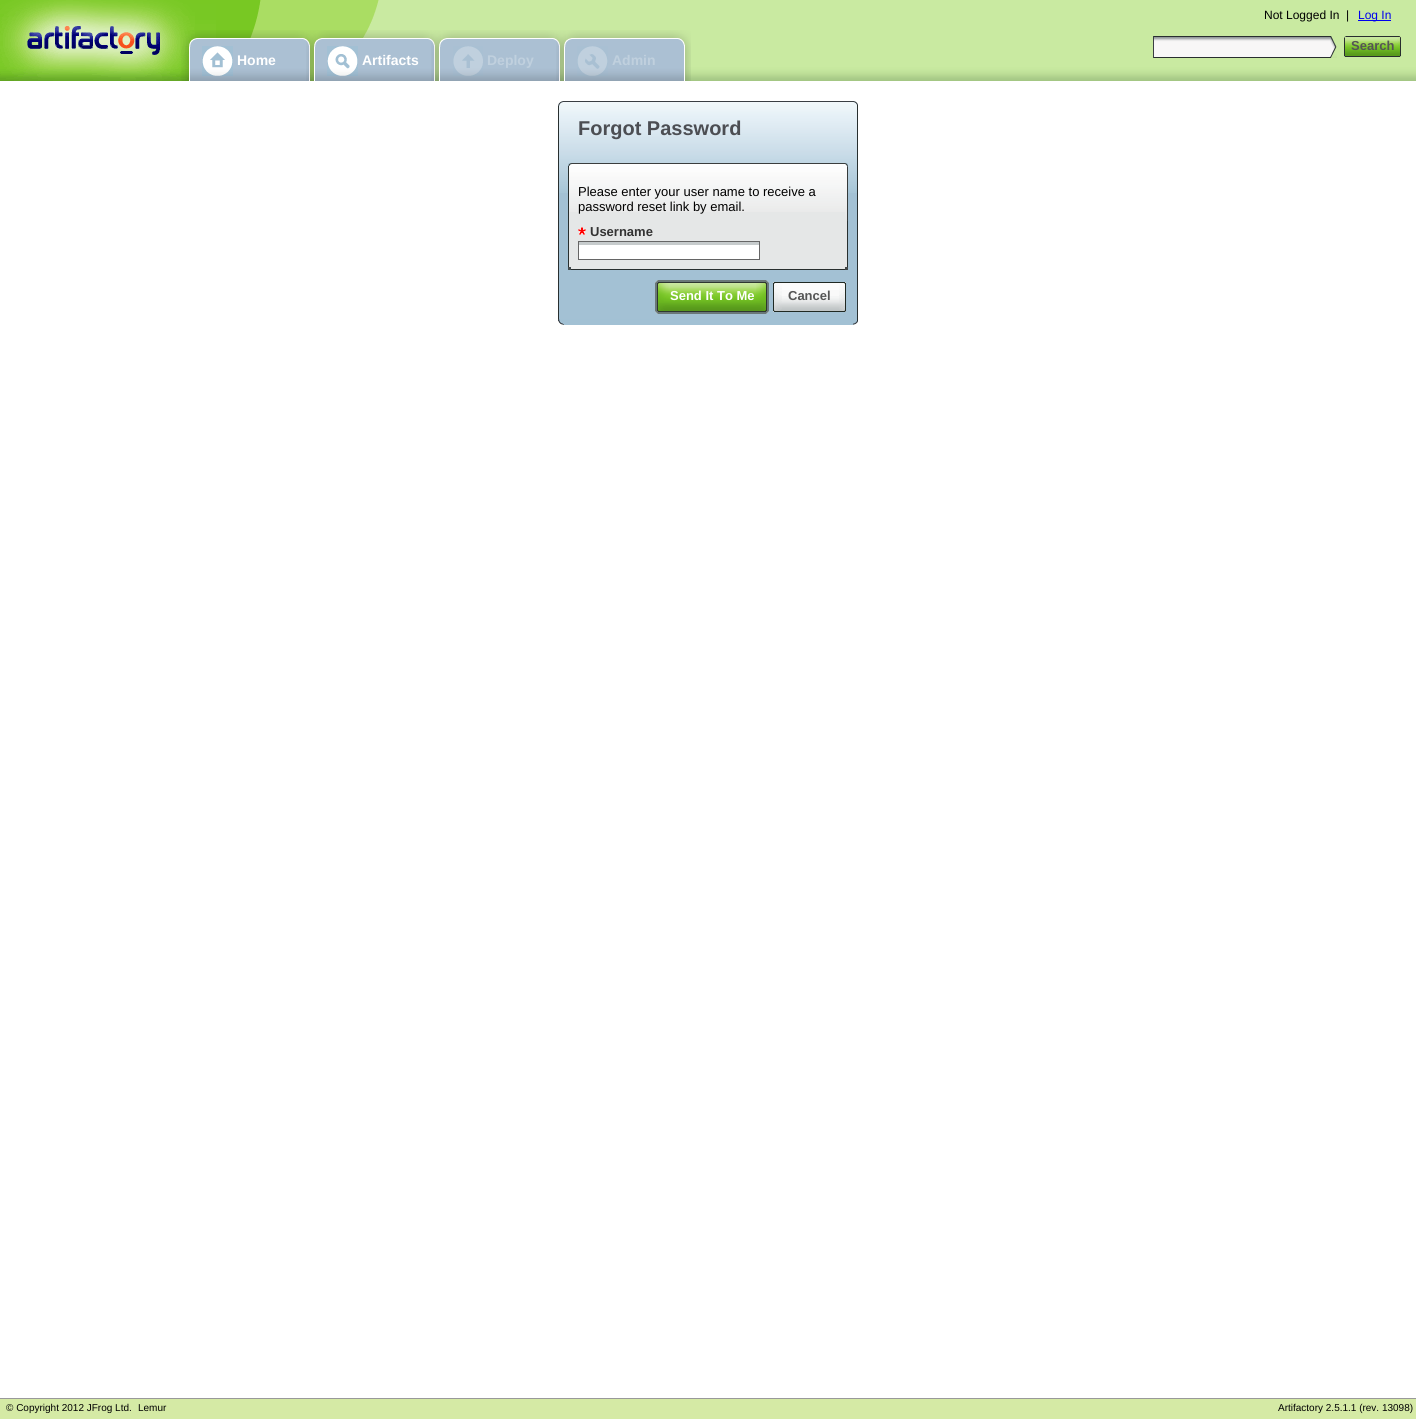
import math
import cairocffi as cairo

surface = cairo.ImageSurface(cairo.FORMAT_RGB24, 1416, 1419)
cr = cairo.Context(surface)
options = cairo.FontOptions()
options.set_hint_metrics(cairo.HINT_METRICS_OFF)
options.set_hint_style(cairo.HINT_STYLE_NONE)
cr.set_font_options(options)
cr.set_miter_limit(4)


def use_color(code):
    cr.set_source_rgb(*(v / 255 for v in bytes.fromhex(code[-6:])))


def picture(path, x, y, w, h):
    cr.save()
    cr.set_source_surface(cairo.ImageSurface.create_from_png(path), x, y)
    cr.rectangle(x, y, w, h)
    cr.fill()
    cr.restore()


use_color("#ffffff")
cr.paint()
picture("img1.png", 379, 0, 1037, 81)
picture("img2.png", 195, 0, 184, 81)
picture("img3.png", 0, 0, 195, 81)
cr.select_font_face("Liberation Sans")
cr.set_font_size(12)
use_color("#000000")
cr.move_to(1264, 19)
cr.show_text("Not Logged In")
cr.move_to(1346, 19)
cr.show_text("|")
use_color("#0000ee")
cr.rectangle(1358, 20, 33, 1)
cr.fill()
cr.move_to(1358, 19)
cr.show_text("Log In")
picture("img4.png", 1330, 36, 7, 22)
picture("img5.png", 1154, 36, 176, 22)
use_color("#3a3e43")
cr.rectangle(1153, 36, 1, 22)
cr.fill()
picture("img6.png", 1346, 36, 51, 21)
picture("img7.png", 1344, 36, 2, 21)
picture("img8.png", 1397, 36, 4, 21)
cr.select_font_face("Liberation Sans", cairo.FONT_SLANT_NORMAL, cairo.FONT_WEIGHT_BOLD)
cr.set_font_size(13)
use_color("#555555")
cr.move_to(1351, 50)
cr.show_text("Search")
picture("img9.png", 181, 30, 135, 51)
picture("img10.png", 202, 46, 31, 30)
cr.set_font_size(14)
use_color("#ffffff")
cr.move_to(237, 65)
cr.show_text("Home")
picture("img11.png", 306, 30, 135, 51)
picture("img12.png", 327, 46, 31, 30)
cr.move_to(362, 65)
cr.show_text("Artifacts")
picture("img13.png", 431, 30, 135, 51)
picture("img14.png", 453, 46, 30, 30)
use_color("#c0d0de")
cr.move_to(487, 65)
cr.show_text("Deploy")
picture("img13.png", 556, 30, 135, 51)
picture("img15.png", 577, 46, 31, 30)
cr.move_to(612, 65)
cr.show_text("Admin")
use_color("#a3c1d4")
cr.rectangle(559, 193, 298, 126)
cr.fill()
picture("img16.png", 559, 101, 298, 92)
use_color("#282f2f")
cr.rectangle(558, 101, 1, 224)
cr.fill()
cr.rectangle(857, 101, 1, 224)
cr.fill()
picture("img17.png", 558, 101, 5, 5)
picture("img18.png", 853, 101, 5, 4)
use_color("#a2c1d4")
cr.rectangle(558, 319, 300, 6)
cr.fill()
picture("img19.png", 558, 319, 6, 6)
picture("img20.png", 853, 319, 5, 6)
cr.set_font_size(20)
use_color("#4c4e53")
cr.move_to(578, 135)
cr.show_text("Forgot Password")
use_color("#e5e7e7")
cr.rectangle(569, 212, 278, 57)
cr.fill()
picture("img21.png", 569, 163, 276, 49)
use_color("#282f2f")
cr.rectangle(568, 269, 280, 1)
cr.fill()
cr.rectangle(568, 163, 1, 106)
cr.fill()
cr.rectangle(847, 221, 1, 48)
cr.fill()
picture("img22.png", 568, 163, 4, 3)
picture("img23.png", 845, 163, 3, 58)
use_color("#454c4f")
cr.rectangle(568, 267, 3, 3)
cr.fill()
use_color("#424747")
cr.rectangle(845, 267, 3, 3)
cr.fill()
cr.select_font_face("Liberation Sans")
cr.set_font_size(13)
use_color("#000000")
cr.move_to(578, 196)
cr.show_text("Please enter your user name to receive a")
cr.move_to(578, 211)
cr.show_text("password reset link by email.")
picture("img24.png", 578, 227, 8, 8)
cr.select_font_face("Liberation Sans", cairo.FONT_SLANT_NORMAL, cairo.FONT_WEIGHT_BOLD)
use_color("#333333")
cr.move_to(590, 236)
cr.show_text("Username")
use_color("#ffffff")
cr.rectangle(579, 245, 180, 14)
cr.fill()
use_color("#c6cbcc")
cr.rectangle(578, 242, 182, 3)
cr.fill()
cr.rectangle(578.5, 241.5, 181, 18)
use_color("#666666")
cr.set_line_width(1)
cr.stroke()
picture("img25.png", 669, 280, 87, 34)
picture("img26.png", 655, 280, 14, 34)
picture("img27.png", 756, 280, 13, 34)
use_color("#ffffff")
cr.move_to(670, 300)
cr.show_text("Send It To Me")
picture("img28.png", 782, 282, 57, 30)
picture("img29.png", 773, 282, 9, 30)
picture("img30.png", 839, 282, 7, 30)
use_color("#555555")
cr.move_to(788, 300)
cr.show_text("Cancel")
use_color("#d5eaa5")
cr.rectangle(0, 1399, 1416, 20)
cr.fill()
use_color("#999999")
cr.rectangle(0, 1398, 1416, 1)
cr.fill()
cr.select_font_face("Liberation Sans")
cr.set_font_size(10)
use_color("#000000")
cr.move_to(6, 1411)
cr.show_text("© Copyright 2012 JFrog Ltd.")
cr.move_to(138, 1411)
cr.show_text("Lemur")
cr.move_to(1278, 1411)
cr.show_text("Artifactory 2.5.1.1 (rev. 13098)")
surface.write_to_png("result.png")
